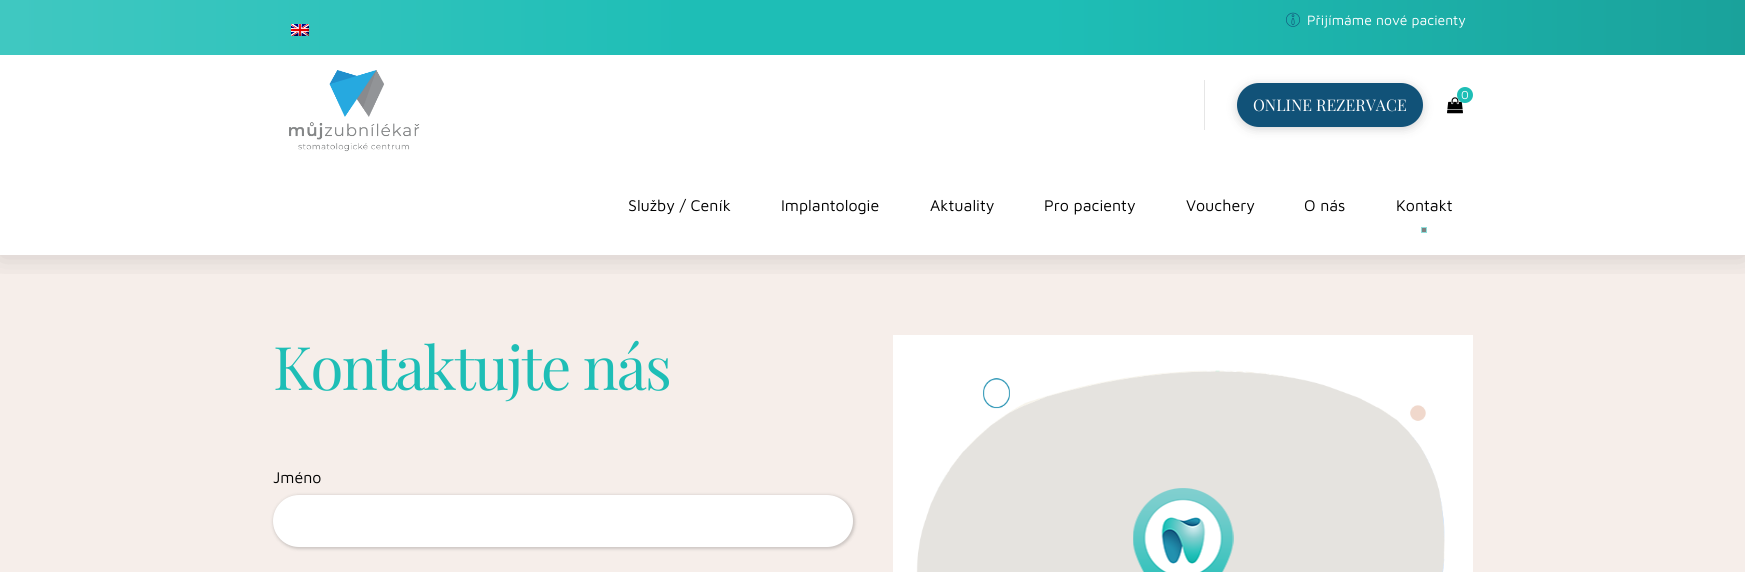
import math
import cairocffi as cairo

surface = cairo.ImageSurface(cairo.FORMAT_RGB24, 1745, 572)
cr = cairo.Context(surface)
options = cairo.FontOptions()
options.set_hint_metrics(cairo.HINT_METRICS_OFF)
options.set_hint_style(cairo.HINT_STYLE_NONE)
cr.set_font_options(options)
cr.set_miter_limit(4)


def use_color(code):
    cr.set_source_rgb(*(v / 255 for v in bytes.fromhex(code[-6:])))


def spaced_text(x, y, s, letter, word):
    cr.move_to(x, y)
    for ch in s:
        cr.show_text(ch)
        cr.rel_move_to(letter + word * (ch == ' '), 0)


def round_rect(x, y, w, h, r):
    cr.new_sub_path()
    for i, (u, v) in enumerate([(x + w - r, y + h - r), (x + r, y + h - r), (x + r, y + r), (x + w - r, y + r)]):
        cr.arc(u, v, r, i * math.pi / 2, (i + 1) * math.pi / 2)
    cr.close_path()


def shadow(x, y, w, h, r, blur, alpha):
    cr.push_group_with_content(cairo.CONTENT_ALPHA)
    cr.set_operator(cairo.OPERATOR_SOURCE)
    for i in range(15, -16, -2):
        e = blur * i / 6
        if min(w, h) + 2 * e > 0:
            cr.set_source_rgba(0, 0, 0, alpha * math.erfc((i - 1) / 8.5) / 2)
            round_rect(x - e, y - e, w + 2 * e, h + 2 * e, max(0, min(r + e + blur * .6, min(w, h) / 2 + e)))
            cr.fill()
    cr.mask(cr.pop_group())


def picture(path, x, y, w, h):
    cr.save()
    cr.set_source_surface(cairo.ImageSurface.create_from_png(path), x, y)
    cr.rectangle(x, y, w, h)
    cr.fill()
    cr.restore()


use_color("#ffffff")
cr.paint()
use_color("#f6eeea")
cr.rectangle(0, 255, 1745, 317)
cr.fill()
cr.save()
cr.rectangle(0, 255, 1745, 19)
cr.clip()
use_color("#000000")
shadow(0, 2, 1745, 255, 0, 15, 0.15)
cr.restore()
gradient = cairo.LinearGradient(0, 28, 1745, 27)
gradient.add_color_stop_rgba(0, 0.251, 0.784, 0.757, 1)
gradient.add_color_stop_rgba(0.4, 0.118, 0.745, 0.714, 1)
gradient.add_color_stop_rgba(0.6, 0.118, 0.745, 0.714, 1)
gradient.add_color_stop_rgba(1, 0.102, 0.635, 0.608, 1)
cr.set_source(gradient)
cr.rectangle(0, 0, 1745, 55)
cr.fill()
picture("img1.png", 291, 24, 18, 12)
picture("img2.png", 1286, 12, 14, 15)
cr.select_font_face("Maven Pro")
cr.set_font_size(14)
use_color("#ffffff")
cr.move_to(1307, 25)
cr.show_text("Přijímáme nové pacienty")
picture("img3.png", 289, 70, 131, 82)
use_color("#e6e6e6")
cr.rectangle(1204, 80, 1, 50)
cr.fill()
picture("img4.png", 1447, 97, 16, 17)
use_color("#1ebeb6")
cr.arc(1465, 95, 8, 0, 2 * math.pi)
cr.fill()
cr.set_font_size(12)
use_color("#ffffff")
cr.move_to(1461, 99)
cr.show_text("0")
use_color("#222222")
shadow(1237, 85, 186, 44, 22, 5, 0.2)
gradient = cairo.LinearGradient(1237, 105, 1609, 105)
gradient.add_color_stop_rgba(0.51, 0.067, 0.322, 0.471, 1)
gradient.add_color_stop_rgba(1, 0.118, 0.745, 0.714, 1)
cr.set_source(gradient)
round_rect(1237, 83, 186, 44, 22)
cr.fill()
cr.select_font_face("Playfair Display")
cr.set_font_size(16)
use_color("#ffffff")
cr.move_to(1253, 111)
cr.show_text("ONLINE REZERVACE")
cr.select_font_face("Maven Pro")
use_color("#000000")
cr.move_to(628, 211)
cr.show_text("Služby / Ceník")
cr.move_to(781, 211)
cr.show_text("Implantologie")
cr.move_to(930, 211)
cr.show_text("Aktuality")
cr.move_to(1044, 211)
cr.show_text("Pro pacienty")
cr.move_to(1186, 211)
cr.show_text("Vouchery")
cr.move_to(1304, 211)
cr.show_text("O nás")
cr.move_to(1396, 211)
cr.show_text("Kontakt")
use_color("#808080")
cr.rectangle(1421.5, 227.5, 5, 5)
cr.fill_preserve()
use_color("#8fdfdb")
cr.set_line_width(1)
cr.stroke()
cr.select_font_face("Playfair Display")
cr.set_font_size(60)
use_color("#1ebeb6")
spaced_text(273, 390, "Kontaktujte nás", -1.75, 0)
cr.select_font_face("Maven Pro")
cr.set_font_size(16)
use_color("#000000")
cr.move_to(273, 483)
cr.show_text("Jméno")
use_color("#222222")
shadow(273, 495, 582, 54, 27, 1.5, 0.2)
use_color("#ffffff")
round_rect(273, 495, 580, 52, 26)
cr.fill()
use_color("#e5e3df")
cr.rectangle(916, 371, 529, 201)
cr.fill()
picture("img6.png", 1133, 488, 101, 84)
picture("img5.png", 893, 335, 580, 237)
surface.write_to_png("result.png")
